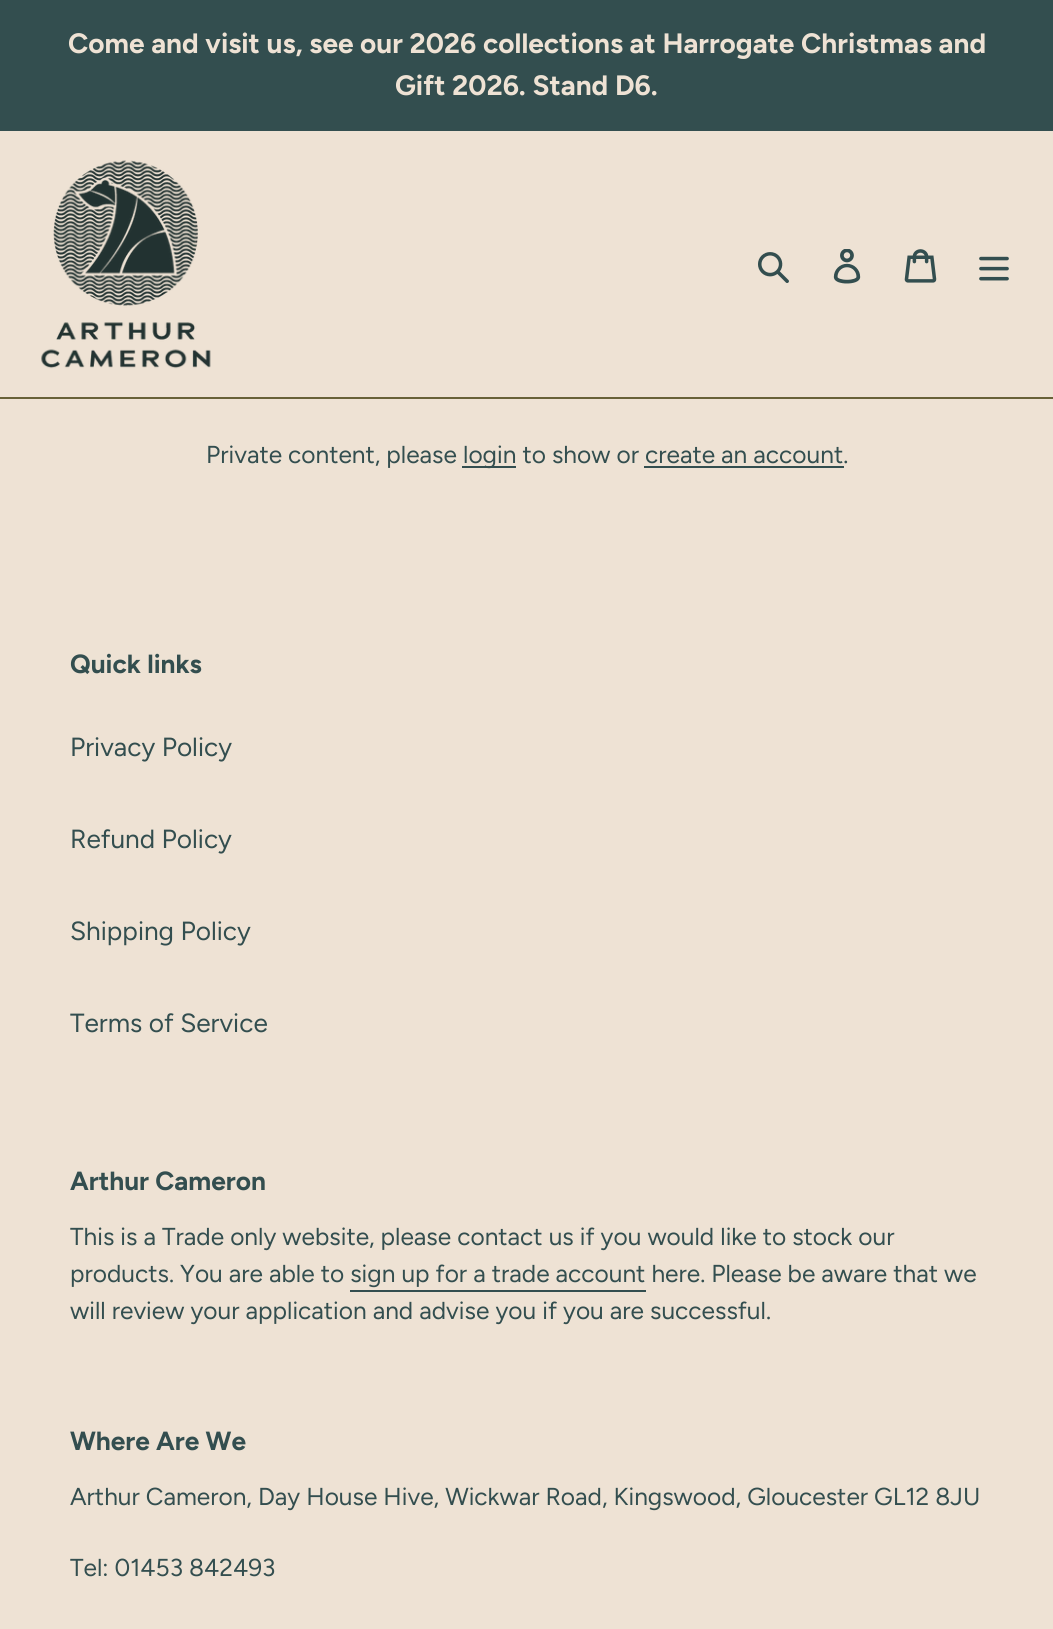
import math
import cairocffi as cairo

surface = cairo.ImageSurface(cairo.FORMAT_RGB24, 1053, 1629)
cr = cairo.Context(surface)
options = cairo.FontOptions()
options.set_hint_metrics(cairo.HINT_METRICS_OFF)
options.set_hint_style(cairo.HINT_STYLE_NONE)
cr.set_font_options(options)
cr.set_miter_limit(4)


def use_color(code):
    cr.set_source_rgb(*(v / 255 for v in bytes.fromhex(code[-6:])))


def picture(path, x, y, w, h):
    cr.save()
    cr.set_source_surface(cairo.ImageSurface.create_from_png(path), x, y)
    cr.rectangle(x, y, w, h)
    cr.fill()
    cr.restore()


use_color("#eee2d4")
cr.paint()
use_color("#334e4f")
cr.rectangle(0, 0, 1053, 131)
cr.fill()
cr.select_font_face("Figtree", cairo.FONT_SLANT_NORMAL, cairo.FONT_WEIGHT_BOLD)
cr.set_font_size(28)
use_color("#eee2d4")
cr.move_to(68, 53)
cr.show_text("Come and visit us, see our 2026 collections at Harrogate Christmas and")
cr.move_to(395, 95)
cr.show_text("Gift 2026. Stand D6.")
use_color("#686138")
cr.rectangle(0, 397, 1053, 2)
cr.fill()
picture("img1.png", 41, 160, 170, 209)
picture("img2.png", 758, 252, 31, 31)
picture("img3.png", 833, 249, 28, 35)
picture("img4.png", 904, 249, 33, 34)
picture("img5.png", 979, 256, 30, 25)
cr.select_font_face("Figtree")
cr.set_font_size(24.5)
use_color("#334e4f")
cr.move_to(206, 463)
cr.show_text("Private content, please")
cr.rectangle(462, 466, 54, 2)
cr.fill()
cr.move_to(463, 463)
cr.show_text("login to show or create an account.")
cr.rectangle(644, 466, 200, 2)
cr.fill()
cr.select_font_face("Figtree", cairo.FONT_SLANT_NORMAL, cairo.FONT_WEIGHT_BOLD)
cr.set_font_size(26.25)
cr.move_to(70, 673)
cr.show_text("Quick links")
cr.select_font_face("Figtree")
cr.move_to(70, 756)
cr.show_text("Privacy Policy")
cr.move_to(70, 848)
cr.show_text("Refund Policy")
cr.move_to(70, 940)
cr.show_text("Shipping Policy")
cr.move_to(70, 1032)
cr.show_text("Terms of Service")
cr.select_font_face("Figtree", cairo.FONT_SLANT_NORMAL, cairo.FONT_WEIGHT_BOLD)
cr.move_to(70, 1190)
cr.show_text("Arthur Cameron")
cr.select_font_face("Figtree")
cr.set_font_size(24.5)
cr.move_to(70, 1245)
cr.show_text("This is a Trade only website, please contact us if you would like to stock our")
cr.move_to(70, 1282)
cr.show_text("products. You are able to sign up for a trade account here. Please be aware that we")
cr.rectangle(350, 1290, 296, 2)
cr.fill()
cr.move_to(70, 1319)
cr.show_text("will review your application and advise you if you are successful.")
cr.select_font_face("Figtree", cairo.FONT_SLANT_NORMAL, cairo.FONT_WEIGHT_BOLD)
cr.set_font_size(26.25)
cr.move_to(70, 1450)
cr.show_text("Where Are We")
cr.select_font_face("Figtree")
cr.set_font_size(24.5)
cr.move_to(70, 1505)
cr.show_text("Arthur Cameron, Day House Hive, Wickwar Road, Kingswood, Gloucester GL12 8JU")
cr.move_to(70, 1576)
cr.show_text("Tel: 01453 842493")
surface.write_to_png("result.png")
